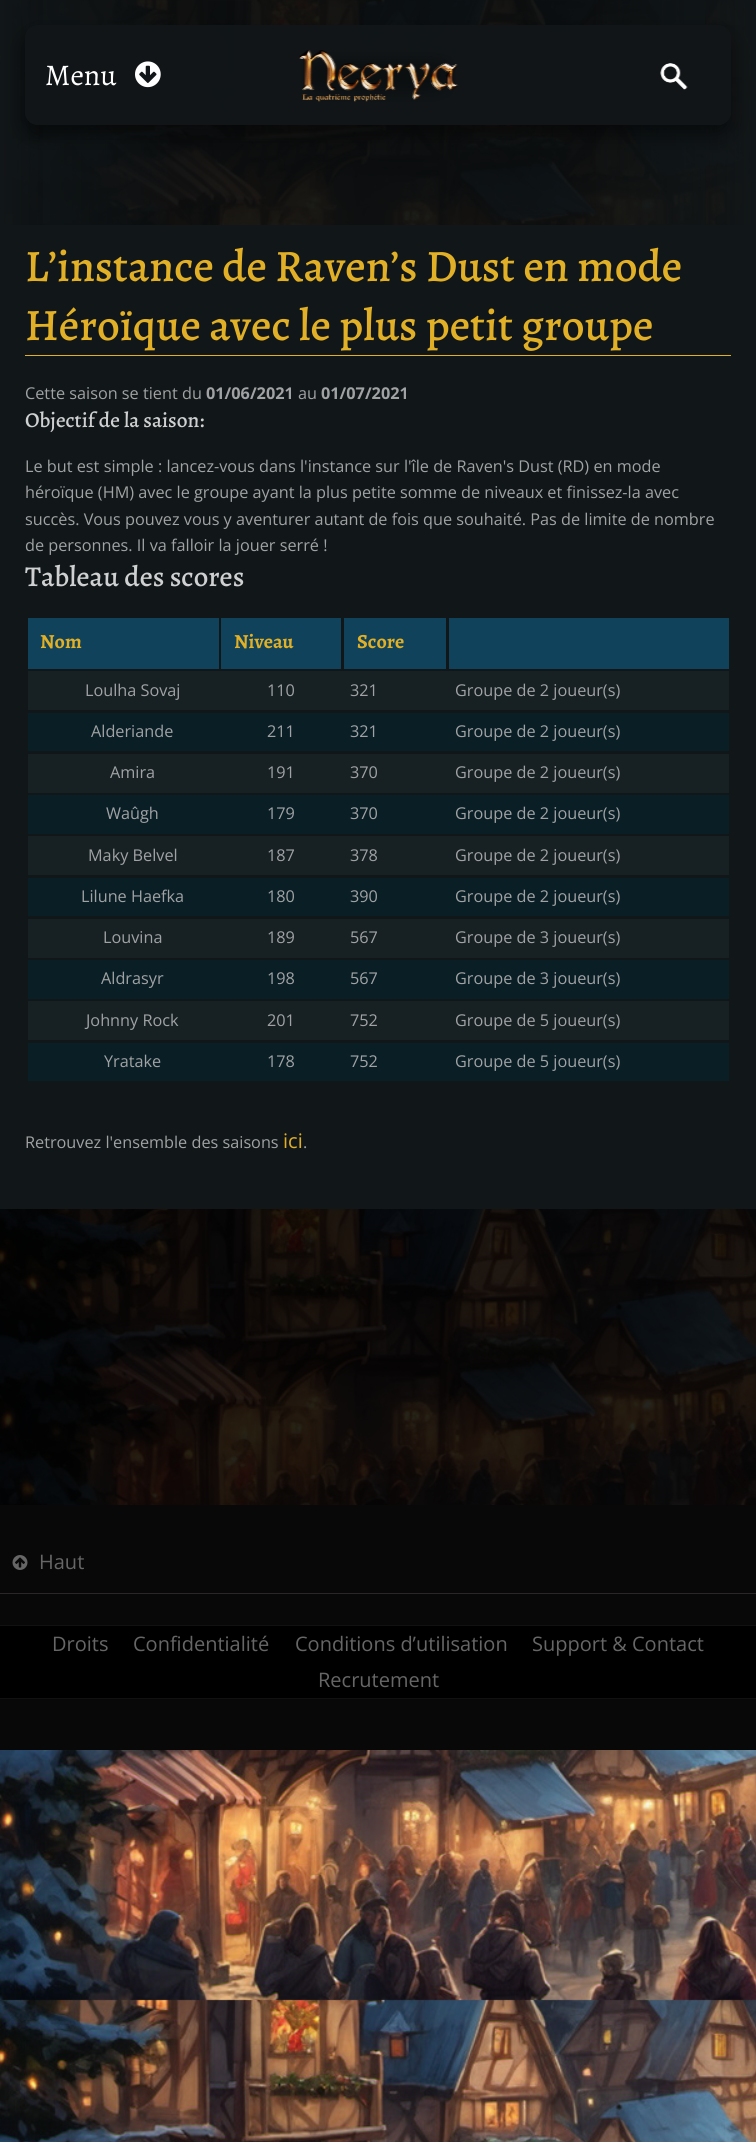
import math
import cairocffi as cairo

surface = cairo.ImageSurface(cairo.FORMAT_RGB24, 756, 2142)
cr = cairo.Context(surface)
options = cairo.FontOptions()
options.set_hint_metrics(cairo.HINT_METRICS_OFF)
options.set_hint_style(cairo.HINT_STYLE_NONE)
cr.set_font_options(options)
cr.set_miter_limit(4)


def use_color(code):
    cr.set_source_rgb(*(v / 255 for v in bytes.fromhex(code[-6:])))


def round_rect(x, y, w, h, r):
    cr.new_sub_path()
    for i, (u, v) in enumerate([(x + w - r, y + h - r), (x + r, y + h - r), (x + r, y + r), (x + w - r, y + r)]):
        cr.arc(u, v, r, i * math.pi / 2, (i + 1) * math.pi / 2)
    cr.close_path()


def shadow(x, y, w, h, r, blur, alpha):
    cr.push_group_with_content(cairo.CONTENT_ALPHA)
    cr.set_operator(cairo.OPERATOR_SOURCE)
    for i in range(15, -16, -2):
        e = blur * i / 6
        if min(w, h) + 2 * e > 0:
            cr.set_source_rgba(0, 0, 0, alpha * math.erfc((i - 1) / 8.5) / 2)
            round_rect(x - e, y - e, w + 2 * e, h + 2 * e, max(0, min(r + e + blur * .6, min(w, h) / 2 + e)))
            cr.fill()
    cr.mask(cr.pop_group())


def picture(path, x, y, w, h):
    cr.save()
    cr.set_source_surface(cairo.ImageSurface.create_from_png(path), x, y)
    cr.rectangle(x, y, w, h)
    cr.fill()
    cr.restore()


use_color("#ffffff")
cr.paint()
picture("img1.png", 0, 0, 756, 2142)
cr.set_source_rgba(0, 0, 0, 0.85)
cr.rectangle(1, 0, 754, 225)
cr.fill()
gradient = cairo.LinearGradient(0, 113, 188, 113)
gradient.add_color_stop_rgba(0, 0.067, 0.086, 0.094, 1)
gradient.add_color_stop_rgba(1, 0.067, 0.086, 0.094, 0)
cr.set_source(gradient)
cr.rectangle(0, 0, 168, 225)
cr.fill()
gradient = cairo.LinearGradient(569, 113, 756, 113)
gradient.add_color_stop_rgba(0, 0.067, 0.086, 0.094, 0)
gradient.add_color_stop_rgba(1, 0.067, 0.086, 0.094, 1)
cr.set_source(gradient)
cr.rectangle(596, 0, 160, 225)
cr.fill()
cr.set_source_rgba(0.067, 0.086, 0.094, 0.5)
cr.rectangle(43, 0, 662, 225)
cr.fill()
cr.save()
cr.set_fill_rule(cairo.FILL_RULE_EVEN_ODD)
cr.new_path()
cr.move_to(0, 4)
cr.line_to(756, 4)
cr.line_to(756, 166)
cr.line_to(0, 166)
cr.close_path()
cr.move_to(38, 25)
cr.line_to(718, 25)
cr.curve_to(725, 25, 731, 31, 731, 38)
cr.line_to(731, 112)
cr.curve_to(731, 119, 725, 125, 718, 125)
cr.line_to(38, 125)
cr.curve_to(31, 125, 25, 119, 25, 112)
cr.line_to(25, 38)
cr.curve_to(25, 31, 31, 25, 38, 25)
cr.close_path()
cr.clip()
use_color("#000000")
shadow(25, 35, 706, 100, 13, 10, 0.5)
cr.restore()
cr.set_source_rgba(0.067, 0.086, 0.094, 0.95)
round_rect(25, 25, 706, 100, 13)
cr.fill()
cr.select_font_face("Alegreya")
cr.set_font_size(30)
use_color("#ffffff")
cr.move_to(45, 85)
cr.show_text("Menu")
picture("img2.png", 135, 61, 26, 27)
picture("img3.png", 299, 50, 160, 52)
picture("img4.png", 660, 63, 28, 27)
cr.set_source_rgba(0, 0, 0, 0.85)
cr.rectangle(0, 1209, 756, 296)
cr.fill()
use_color("#111618")
cr.rectangle(0, 225, 756, 984)
cr.fill()
use_color("#e1b027")
cr.rectangle(25, 355, 706, 1)
cr.fill()
cr.select_font_face("Alegreya Medium")
cr.set_font_size(45)
cr.move_to(25, 281)
cr.show_text("L’instance de Raven’s Dust en mode")
cr.move_to(25, 340)
cr.show_text("Héroïque avec le plus petit groupe")
cr.select_font_face("Open Sans")
cr.set_font_size(16.25)
use_color("#a0a2a3")
cr.move_to(25, 399)
cr.show_text("Cette saison se tient du")
cr.select_font_face("Open Sans", cairo.FONT_SLANT_NORMAL, cairo.FONT_WEIGHT_BOLD)
cr.move_to(206, 399)
cr.show_text("01/06/2021")
cr.select_font_face("Open Sans")
cr.move_to(298, 399)
cr.show_text("au")
cr.select_font_face("Open Sans", cairo.FONT_SLANT_NORMAL, cairo.FONT_WEIGHT_BOLD)
cr.move_to(321, 399)
cr.show_text("01/07/2021")
cr.select_font_face("Alegreya Medium")
cr.set_font_size(21.25)
use_color("#cfd0d1")
cr.move_to(25, 427)
cr.show_text("Objectif de la saison:")
cr.select_font_face("Open Sans")
cr.set_font_size(16.25)
use_color("#a0a2a3")
cr.move_to(25, 472)
cr.show_text("Le but est simple : lancez-vous dans l'instance sur l'île de Raven's Dust (RD) en mode")
cr.move_to(25, 498)
cr.show_text("héroïque (HM) avec le groupe ayant la plus petite somme de niveaux et finissez-la avec")
cr.move_to(25, 525)
cr.show_text("succès. Vous pouvez vous y aventurer autant de fois que souhaité. Pas de limite de nombre")
cr.move_to(25, 551)
cr.show_text("de personnes. Il va falloir la jouer serré !")
cr.select_font_face("Alegreya Medium")
cr.set_font_size(28.75)
use_color("#cfd0d1")
cr.move_to(25, 586)
cr.show_text("Tableau des scores")
use_color("#10435b")
cr.rectangle(28, 618, 191, 51)
cr.fill()
cr.select_font_face("Alegreya", cairo.FONT_SLANT_NORMAL, cairo.FONT_WEIGHT_BOLD)
cr.set_font_size(20)
use_color("#e1b027")
cr.move_to(40, 648)
cr.show_text("Nom")
use_color("#10435b")
cr.rectangle(221, 618, 120, 51)
cr.fill()
use_color("#e1b027")
cr.move_to(234, 648)
cr.show_text("Niveau")
use_color("#10435b")
cr.rectangle(344, 618, 102, 51)
cr.fill()
use_color("#e1b027")
cr.move_to(357, 648)
cr.show_text("Score")
use_color("#10435b")
cr.rectangle(449, 618, 280, 51)
cr.fill()
use_color("#172124")
cr.rectangle(28, 671, 701, 39)
cr.fill()
cr.select_font_face("Open Sans")
cr.set_font_size(16.25)
use_color("#a0a2a3")
cr.move_to(85, 696)
cr.show_text("Loulha Sovaj")
cr.move_to(267, 696)
cr.show_text("110")
cr.move_to(350, 696)
cr.show_text("321")
cr.move_to(455, 696)
cr.show_text("Groupe de 2 joueur(s)")
use_color("#0a1e26")
cr.rectangle(28, 713, 701, 38)
cr.fill()
use_color("#a0a2a3")
cr.move_to(91, 737)
cr.show_text("Alderiande")
cr.move_to(267, 737)
cr.show_text("211")
cr.move_to(350, 737)
cr.show_text("321")
cr.move_to(455, 737)
cr.show_text("Groupe de 2 joueur(s)")
use_color("#172124")
cr.rectangle(28, 754, 701, 39)
cr.fill()
use_color("#a0a2a3")
cr.move_to(110, 778)
cr.show_text("Amira")
cr.move_to(267, 778)
cr.show_text("191")
cr.move_to(350, 778)
cr.show_text("370")
cr.move_to(455, 778)
cr.show_text("Groupe de 2 joueur(s)")
use_color("#0a1e26")
cr.rectangle(28, 795, 701, 39)
cr.fill()
use_color("#a0a2a3")
cr.move_to(106, 819)
cr.show_text("Waûgh")
cr.move_to(267, 819)
cr.show_text("179")
cr.move_to(350, 819)
cr.show_text("370")
cr.move_to(455, 819)
cr.show_text("Groupe de 2 joueur(s)")
use_color("#172124")
cr.rectangle(28, 836, 701, 39)
cr.fill()
use_color("#a0a2a3")
cr.move_to(88, 861)
cr.show_text("Maky Belvel")
cr.move_to(267, 861)
cr.show_text("187")
cr.move_to(350, 861)
cr.show_text("378")
cr.move_to(455, 861)
cr.show_text("Groupe de 2 joueur(s)")
use_color("#0a1e26")
cr.rectangle(28, 878, 701, 38)
cr.fill()
use_color("#a0a2a3")
cr.move_to(81, 902)
cr.show_text("Lilune Haefka")
cr.move_to(267, 902)
cr.show_text("180")
cr.move_to(350, 902)
cr.show_text("390")
cr.move_to(455, 902)
cr.show_text("Groupe de 2 joueur(s)")
use_color("#172124")
cr.rectangle(28, 919, 701, 39)
cr.fill()
use_color("#a0a2a3")
cr.move_to(103, 943)
cr.show_text("Louvina")
cr.move_to(267, 943)
cr.show_text("189")
cr.move_to(350, 943)
cr.show_text("567")
cr.move_to(455, 943)
cr.show_text("Groupe de 3 joueur(s)")
use_color("#0a1e26")
cr.rectangle(28, 960, 701, 39)
cr.fill()
use_color("#a0a2a3")
cr.move_to(101, 984)
cr.show_text("Aldrasyr")
cr.move_to(267, 984)
cr.show_text("198")
cr.move_to(350, 984)
cr.show_text("567")
cr.move_to(455, 984)
cr.show_text("Groupe de 3 joueur(s)")
use_color("#172124")
cr.rectangle(28, 1001, 701, 39)
cr.fill()
use_color("#a0a2a3")
cr.move_to(86, 1026)
cr.show_text("Johnny Rock")
cr.move_to(267, 1026)
cr.show_text("201")
cr.move_to(350, 1026)
cr.show_text("752")
cr.move_to(455, 1026)
cr.show_text("Groupe de 5 joueur(s)")
use_color("#0a1e26")
cr.rectangle(28, 1043, 701, 38)
cr.fill()
use_color("#a0a2a3")
cr.move_to(104, 1067)
cr.show_text("Yratake")
cr.move_to(267, 1067)
cr.show_text("178")
cr.move_to(350, 1067)
cr.show_text("752")
cr.move_to(455, 1067)
cr.show_text("Groupe de 5 joueur(s)")
cr.move_to(25, 1148)
cr.show_text("Retrouvez l'ensemble des saisons")
cr.set_font_size(20)
use_color("#e1b027")
cr.move_to(283, 1148)
cr.show_text("ici")
cr.set_font_size(16.25)
use_color("#a0a2a3")
cr.move_to(303, 1148)
cr.show_text(".")
use_color("#080808")
cr.rectangle(0, 1505, 756, 88)
cr.fill()
picture("img5.png", 12, 1555, 16, 15)
cr.set_font_size(20)
use_color("#666666")
cr.move_to(39, 1569)
cr.show_text("Haut")
use_color("#080808")
cr.rectangle(0, 1594, 756, 31)
cr.fill()
use_color("#2b2729")
cr.rectangle(0, 1593, 756, 1)
cr.fill()
use_color("#000000")
cr.rectangle(0, 1626, 756, 72)
cr.fill()
use_color("#111111")
cr.rectangle(0, 1625, 756, 1)
cr.fill()
cr.rectangle(0, 1698, 756, 1)
cr.fill()
use_color("#666666")
cr.move_to(52, 1651)
cr.show_text("Droits")
cr.move_to(133, 1651)
cr.show_text("Confidentialité")
cr.move_to(295, 1651)
cr.show_text("Conditions d’utilisation")
cr.move_to(532, 1651)
cr.show_text("Support & Contact")
cr.move_to(318, 1687)
cr.show_text("Recrutement")
use_color("#080808")
cr.rectangle(0, 1699, 756, 51)
cr.fill()
surface.write_to_png("result.png")
